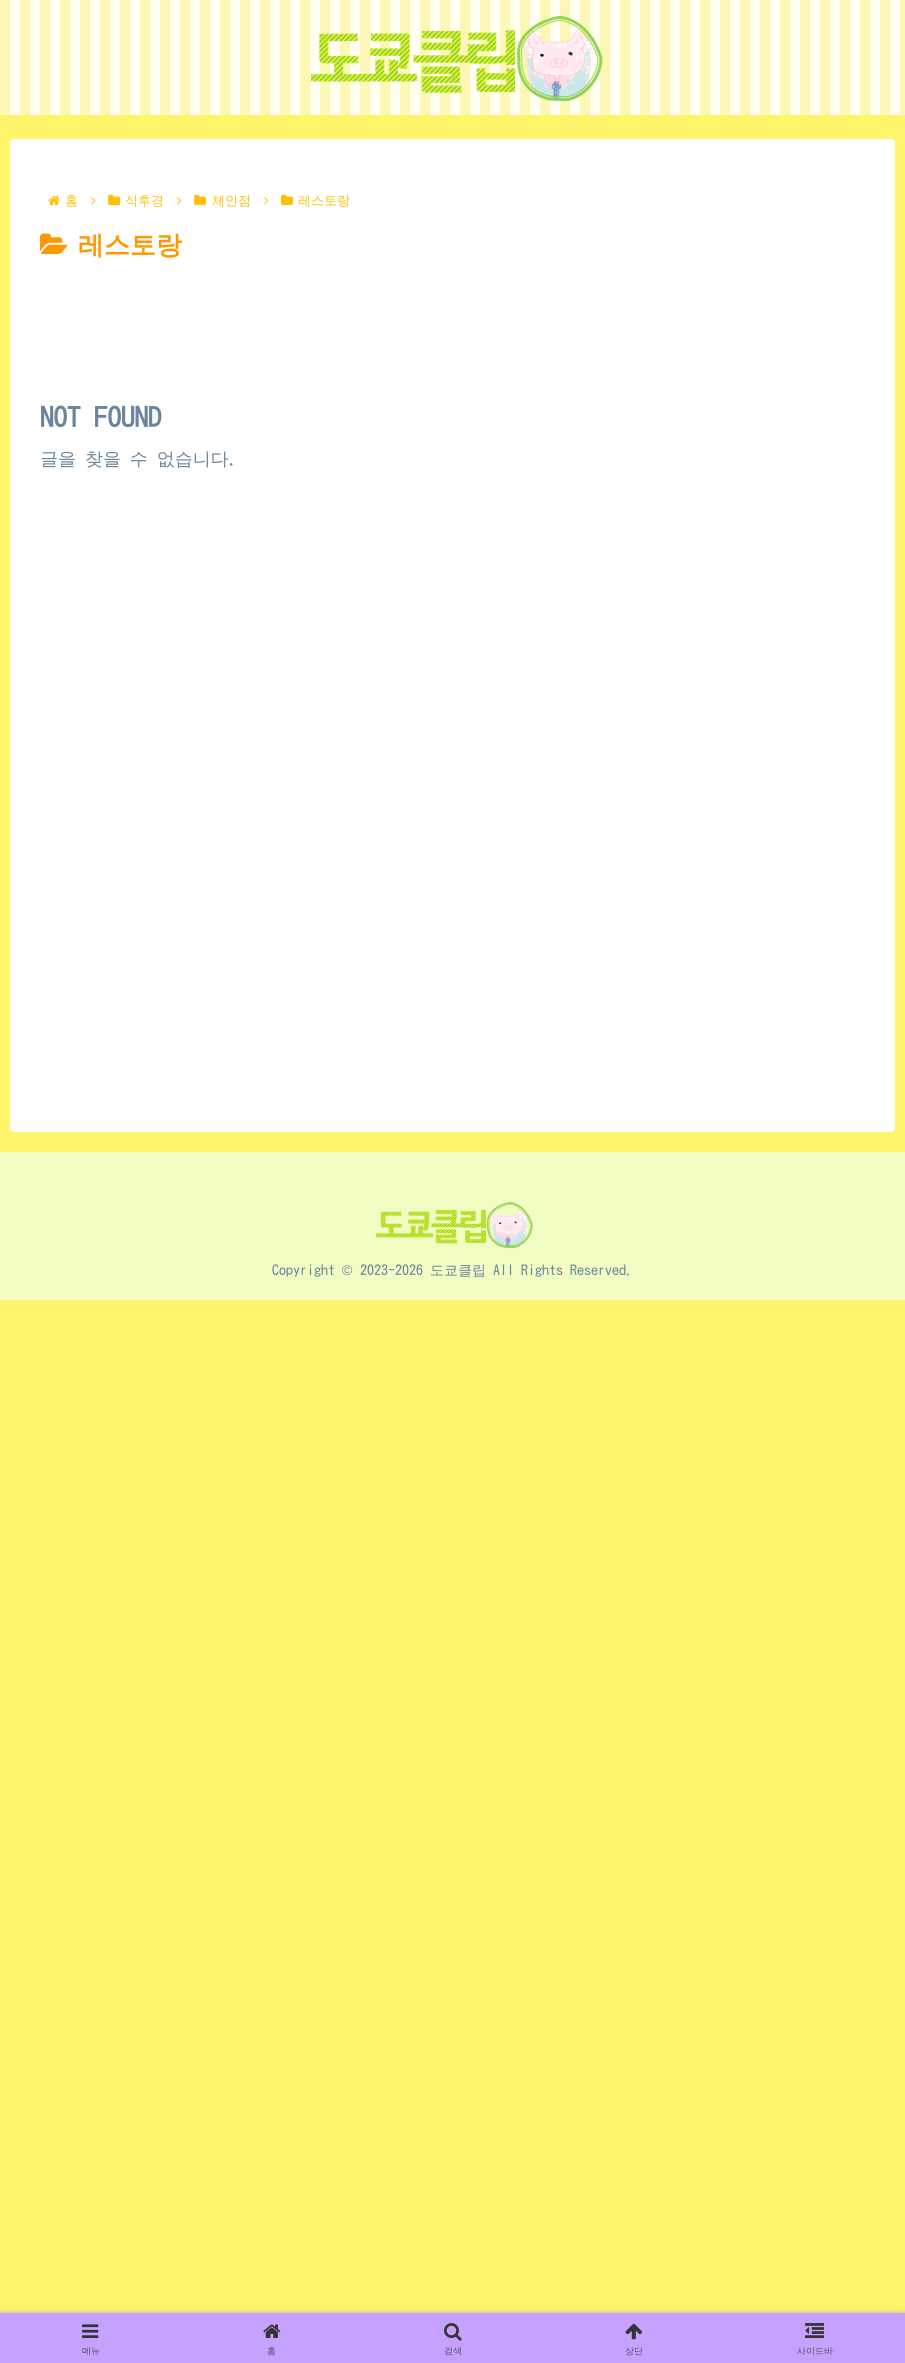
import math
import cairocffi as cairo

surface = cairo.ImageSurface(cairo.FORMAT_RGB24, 905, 2363)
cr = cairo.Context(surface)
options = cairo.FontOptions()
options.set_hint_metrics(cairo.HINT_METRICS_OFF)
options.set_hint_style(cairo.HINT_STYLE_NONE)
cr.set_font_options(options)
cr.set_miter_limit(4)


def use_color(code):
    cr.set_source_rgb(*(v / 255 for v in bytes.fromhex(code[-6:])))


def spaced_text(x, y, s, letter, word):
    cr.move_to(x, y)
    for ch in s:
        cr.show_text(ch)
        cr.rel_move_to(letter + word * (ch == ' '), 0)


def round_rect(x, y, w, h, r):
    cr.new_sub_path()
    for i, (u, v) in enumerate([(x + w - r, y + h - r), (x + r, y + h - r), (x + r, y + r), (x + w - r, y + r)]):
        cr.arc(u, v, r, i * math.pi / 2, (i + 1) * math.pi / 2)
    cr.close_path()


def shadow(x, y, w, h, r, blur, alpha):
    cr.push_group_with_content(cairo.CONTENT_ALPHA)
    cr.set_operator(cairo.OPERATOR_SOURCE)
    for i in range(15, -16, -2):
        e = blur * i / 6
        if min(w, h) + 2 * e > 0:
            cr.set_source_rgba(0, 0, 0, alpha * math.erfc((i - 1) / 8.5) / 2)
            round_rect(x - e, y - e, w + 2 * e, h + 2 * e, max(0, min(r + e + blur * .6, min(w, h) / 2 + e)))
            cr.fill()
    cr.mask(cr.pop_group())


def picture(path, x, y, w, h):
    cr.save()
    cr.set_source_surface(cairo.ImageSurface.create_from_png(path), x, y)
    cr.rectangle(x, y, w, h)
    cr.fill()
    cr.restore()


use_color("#fef56b")
cr.paint()
picture("img1.png", 0, 0, 905, 115)
picture("img2.png", 310, 15, 293, 87)
use_color("#ffffff")
round_rect(10, 139, 885, 993, 4)
cr.fill()
picture("img3.png", 48, 195, 12, 10)
cr.select_font_face("WenQuanYi Zen Hei Medium")
cr.set_font_size(13)
use_color("#ffc107")
cr.move_to(65, 205)
cr.show_text("홈")
picture("img4.png", 91, 197, 5, 8)
picture("img5.png", 108, 194, 13, 11)
cr.move_to(125, 205)
cr.show_text("식후경")
picture("img4.png", 177, 197, 5, 8)
picture("img5.png", 194, 194, 13, 11)
cr.move_to(212, 205)
cr.show_text("체인점")
picture("img4.png", 264, 197, 5, 8)
picture("img5.png", 281, 194, 13, 11)
cr.move_to(298, 205)
cr.show_text("레스토랑")
picture("img6.png", 40, 233, 28, 21)
cr.select_font_face("WenQuanYi Zen Hei", cairo.FONT_SLANT_NORMAL, cairo.FONT_WEIGHT_BOLD)
cr.set_font_size(26)
use_color("#ff9800")
cr.move_to(78, 254)
cr.show_text("레스토랑")
cr.select_font_face("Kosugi", cairo.FONT_SLANT_NORMAL, cairo.FONT_WEIGHT_BOLD)
cr.set_font_size(27)
use_color("#6a859c")
cr.move_to(40, 427)
cr.show_text("NOT FOUND")
cr.select_font_face("WenQuanYi Zen Hei Medium")
cr.set_font_size(18)
spaced_text(40, 465, "글을 찾을 수 없습니다", 0, 3.5)
cr.select_font_face("Kosugi")
cr.move_to(229, 465)
cr.show_text(".")
use_color("#f1fdc3")
cr.rectangle(0, 1152, 905, 148)
cr.fill()
picture("img7.png", 376, 1202, 157, 47)
cr.set_font_size(14)
use_color("#6a859c")
cr.move_to(272, 1275)
cr.show_text("Copyright")
cr.select_font_face("Liberation Sans")
cr.move_to(342, 1275)
cr.show_text("©")
cr.select_font_face("Kosugi")
cr.move_to(360, 1275)
cr.show_text("2023-2026")
cr.select_font_face("WenQuanYi Zen Hei Medium")
cr.move_to(430, 1275)
cr.show_text("도쿄클립")
cr.select_font_face("Kosugi")
cr.move_to(493, 1275)
cr.show_text("All Rights Reserved.")
use_color("#a9a9a9")
shadow(0, 2313, 905, 50, 0, 2.5, 1)
use_color("#c6a2ff")
cr.rectangle(0, 2313, 905, 50)
cr.fill()
picture("img8.png", 82, 2324, 17, 14)
cr.select_font_face("WenQuanYi Zen Hei Medium")
cr.set_font_size(9)
use_color("#50495c")
cr.move_to(82, 2354)
cr.show_text("메뉴")
picture("img9.png", 263, 2324, 18, 14)
cr.move_to(267, 2354)
cr.show_text("홈")
picture("img10.png", 444, 2323, 18, 18)
cr.move_to(444, 2354)
cr.show_text("검색")
picture("img11.png", 625, 2323, 17, 17)
cr.move_to(625, 2354)
cr.show_text("상단")
picture("img12.png", 805, 2323, 19, 15)
cr.move_to(797, 2354)
cr.show_text("사이드바")
surface.write_to_png("result.png")
